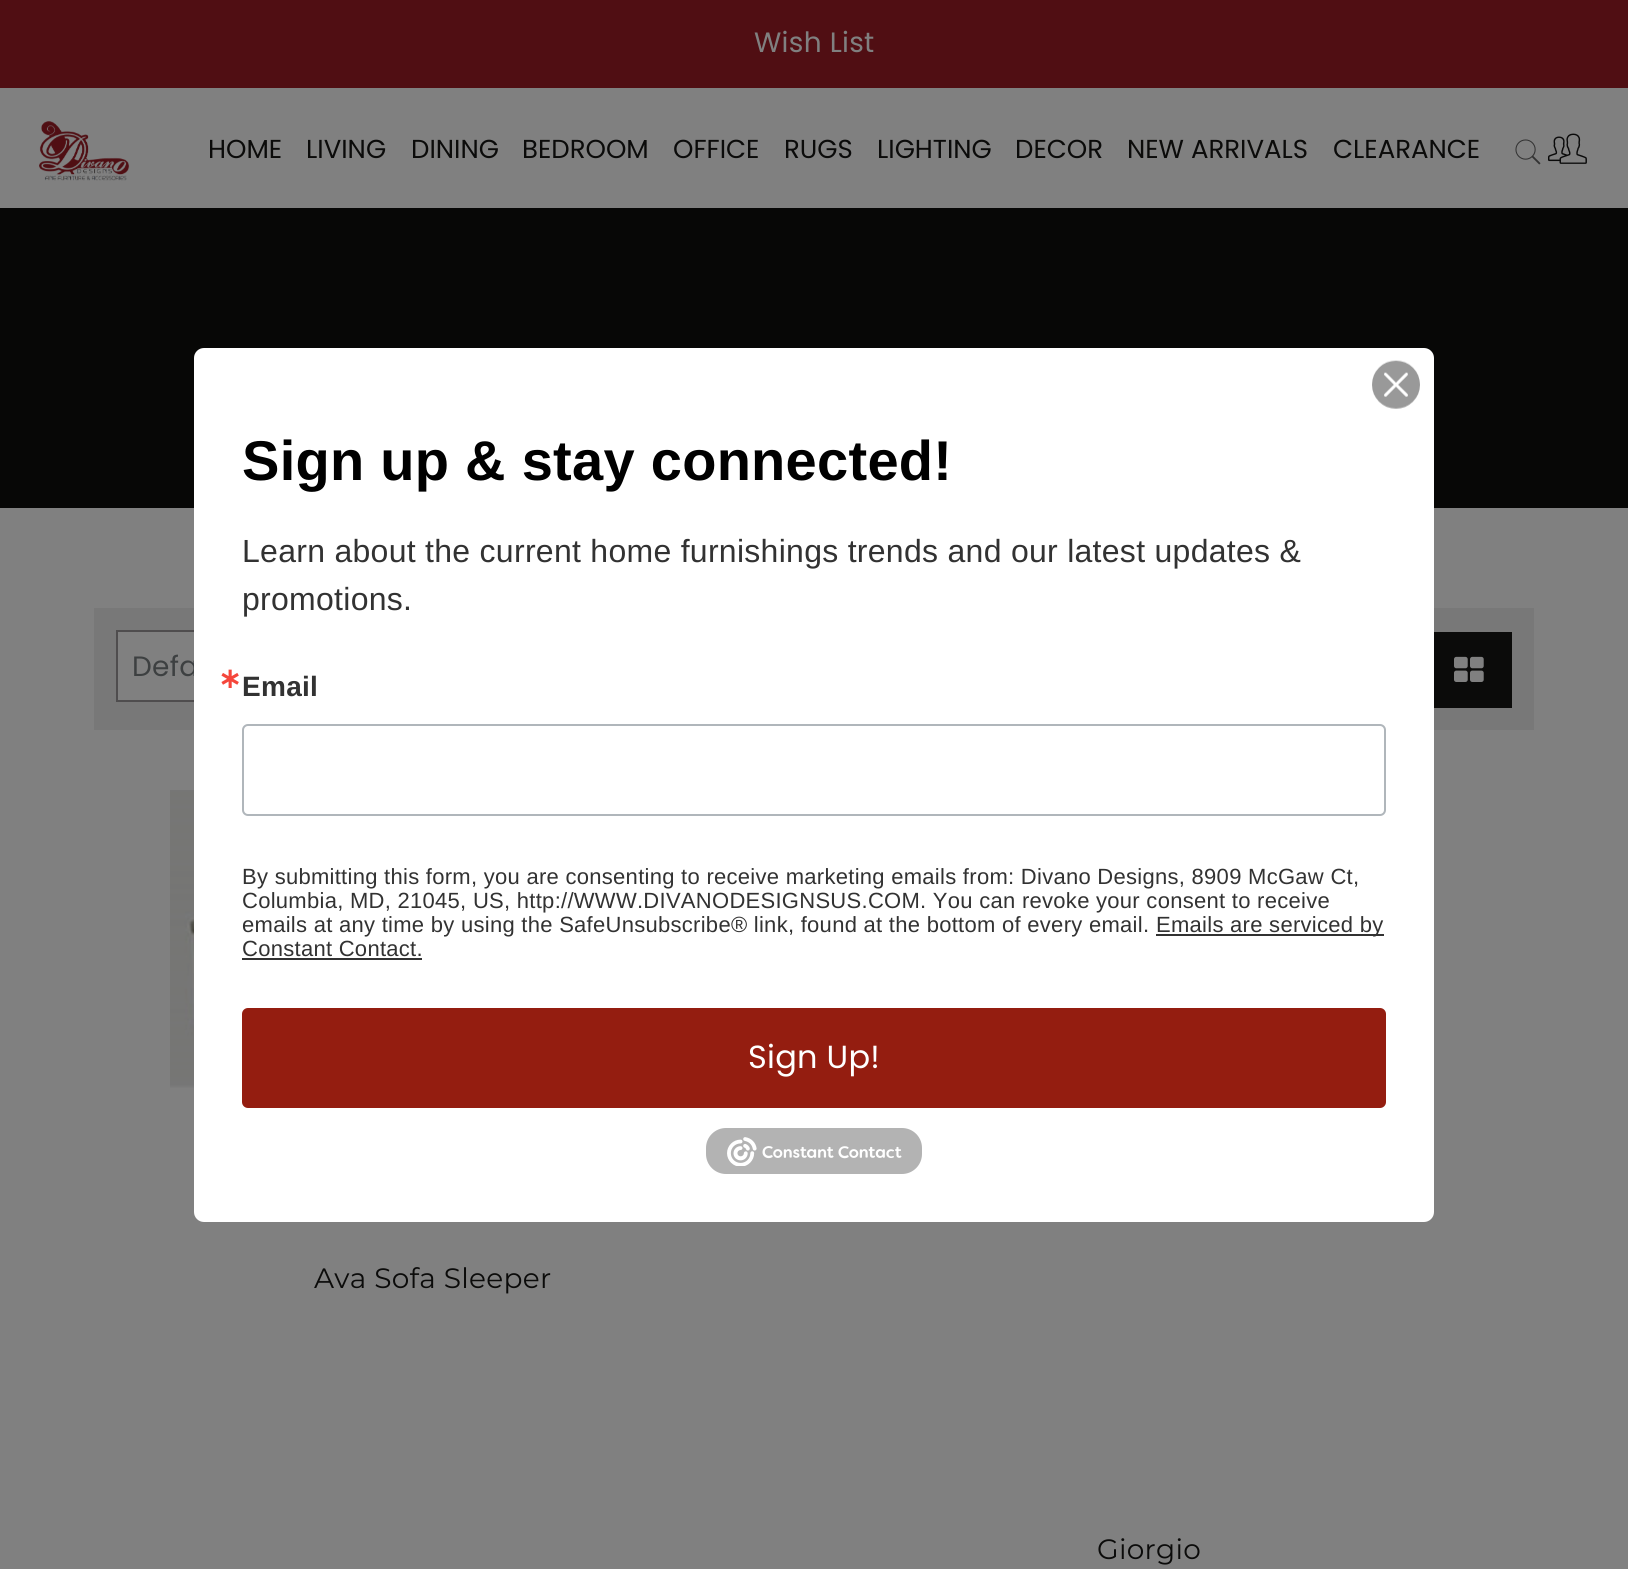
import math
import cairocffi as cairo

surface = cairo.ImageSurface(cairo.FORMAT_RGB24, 1628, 1569)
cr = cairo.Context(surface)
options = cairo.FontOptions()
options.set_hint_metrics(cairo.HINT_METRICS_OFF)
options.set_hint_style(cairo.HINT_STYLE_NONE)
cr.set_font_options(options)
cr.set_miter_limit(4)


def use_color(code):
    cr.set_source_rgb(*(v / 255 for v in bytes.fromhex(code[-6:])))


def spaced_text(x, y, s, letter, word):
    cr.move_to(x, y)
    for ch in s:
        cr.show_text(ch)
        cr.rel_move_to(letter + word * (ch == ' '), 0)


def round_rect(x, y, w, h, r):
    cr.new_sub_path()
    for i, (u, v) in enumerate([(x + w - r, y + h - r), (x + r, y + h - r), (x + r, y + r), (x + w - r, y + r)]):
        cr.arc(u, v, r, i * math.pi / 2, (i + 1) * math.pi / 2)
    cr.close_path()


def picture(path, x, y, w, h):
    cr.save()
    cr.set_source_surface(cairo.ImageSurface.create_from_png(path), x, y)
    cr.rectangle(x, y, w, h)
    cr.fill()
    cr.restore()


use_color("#808080")
cr.paint()
use_color("#500e13")
cr.rectangle(0, 0, 1628, 88)
cr.fill()
cr.select_font_face("Poppins")
cr.set_font_size(28)
use_color("#808080")
spaced_text(754, 52, "Wish List", 0.28, 0)
picture("img1.png", 39, 121, 91, 60)
cr.set_font_size(26)
use_color("#0b0b0a")
cr.move_to(208, 158)
cr.show_text("HOME")
cr.move_to(306, 158)
cr.show_text("LIVING")
cr.move_to(411, 158)
cr.show_text("DINING")
cr.move_to(522, 158)
cr.show_text("BEDROOM")
cr.move_to(673, 158)
cr.show_text("OFFICE")
cr.move_to(784, 158)
cr.show_text("RUGS")
cr.move_to(877, 158)
cr.show_text("LIGHTING")
cr.move_to(1015, 158)
cr.show_text("DECOR")
cr.move_to(1127, 158)
cr.show_text("NEW ARRIVALS")
cr.move_to(1333, 158)
cr.show_text("CLEARANCE")
picture("img2.png", 1515, 139, 26, 26)
picture("img3.png", 1548, 133, 39, 31)
use_color("#070706")
cr.rectangle(0, 208, 1628, 300)
cr.fill()
use_color("#787878")
cr.rectangle(94, 608, 1440, 122)
cr.fill()
use_color("#808080")
cr.rectangle(118, 632, 76, 68)
cr.fill()
cr.rectangle(117, 631, 390, 70)
use_color("#4f4d4e")
cr.stroke()
cr.set_font_size(28)
use_color("#3d4041")
spaced_text(132, 676, "Defa", 0.28, 0)
use_color("#0b0b0a")
cr.rectangle(1434, 632, 78, 76)
cr.fill()
picture("img4.png", 1454, 656, 30, 26)
picture("img5.png", 170, 790, 24, 298)
cr.select_font_face("Montserrat")
spaced_text(314, 1288, "Ava Sofa Sleeper", 0.28, 0)
spaced_text(1097, 1559, "Giorgio", 0.28, 0)
use_color("#ffffff")
round_rect(194, 348, 1240, 874, 10)
cr.fill()
picture("img6.png", 1372, 360, 48, 49)
cr.select_font_face("Liberation Sans", cairo.FONT_SLANT_NORMAL, cairo.FONT_WEIGHT_BOLD)
cr.set_font_size(56)
use_color("#000000")
spaced_text(242, 480, "Sign up & stay connected!", 0.28, 0)
cr.select_font_face("Liberation Sans")
cr.set_font_size(32)
use_color("#323232")
spaced_text(242, 562, "Learn about the current home furnishings trends and our latest updates &", 0.28, 0)
spaced_text(242, 610, "promotions.", 0.28, 0)
cr.select_font_face("DejaVu Sans", cairo.FONT_SLANT_NORMAL, cairo.FONT_WEIGHT_BOLD)
cr.set_font_size(28)
use_color("#f5463b")
spaced_text(218, 688, "∗", 0.28, 0)
cr.select_font_face("Liberation Sans", cairo.FONT_SLANT_NORMAL, cairo.FONT_WEIGHT_BOLD)
use_color("#323232")
spaced_text(242, 696, "Email", 0.28, 0)
round_rect(243, 725, 1142, 90, 5)
use_color("#b0b6bb")
cr.stroke()
cr.select_font_face("Liberation Sans")
cr.set_font_size(22)
use_color("#323232")
spaced_text(242, 884, "By submitting this form, you are consenting to receive marketing emails from: Divano Designs, 8909 McGaw Ct,", 0.28, 0)
spaced_text(242, 908, "Columbia, MD, 21045, US, http://WWW.DIVANODESIGNSUS.COM. You can revoke your consent to receive", 0.28, 0)
spaced_text(242, 932, "emails at any time by using the SafeUnsubscribe® link, found at the bottom of every email.", 0.28, 0)
cr.rectangle(1156, 934, 228, 2)
cr.fill()
spaced_text(1156, 932, "Emails are serviced by", 0.28, 0)
spaced_text(242, 956, "Constant Contact.", 0.28, 0)
cr.rectangle(242, 958, 180, 2)
cr.fill()
use_color("#941d10")
round_rect(243, 1009, 1142, 98, 5)
cr.fill_preserve()
cr.stroke()
cr.select_font_face("Poppins")
cr.set_font_size(32)
use_color("#ffffff")
spaced_text(748, 1068, "Sign Up!", 0.25, 0)
use_color("#b3b3b3")
round_rect(706, 1128, 216, 46, 20)
cr.fill()
picture("img7.png", 727, 1137, 175, 29)
surface.write_to_png("result.png")
